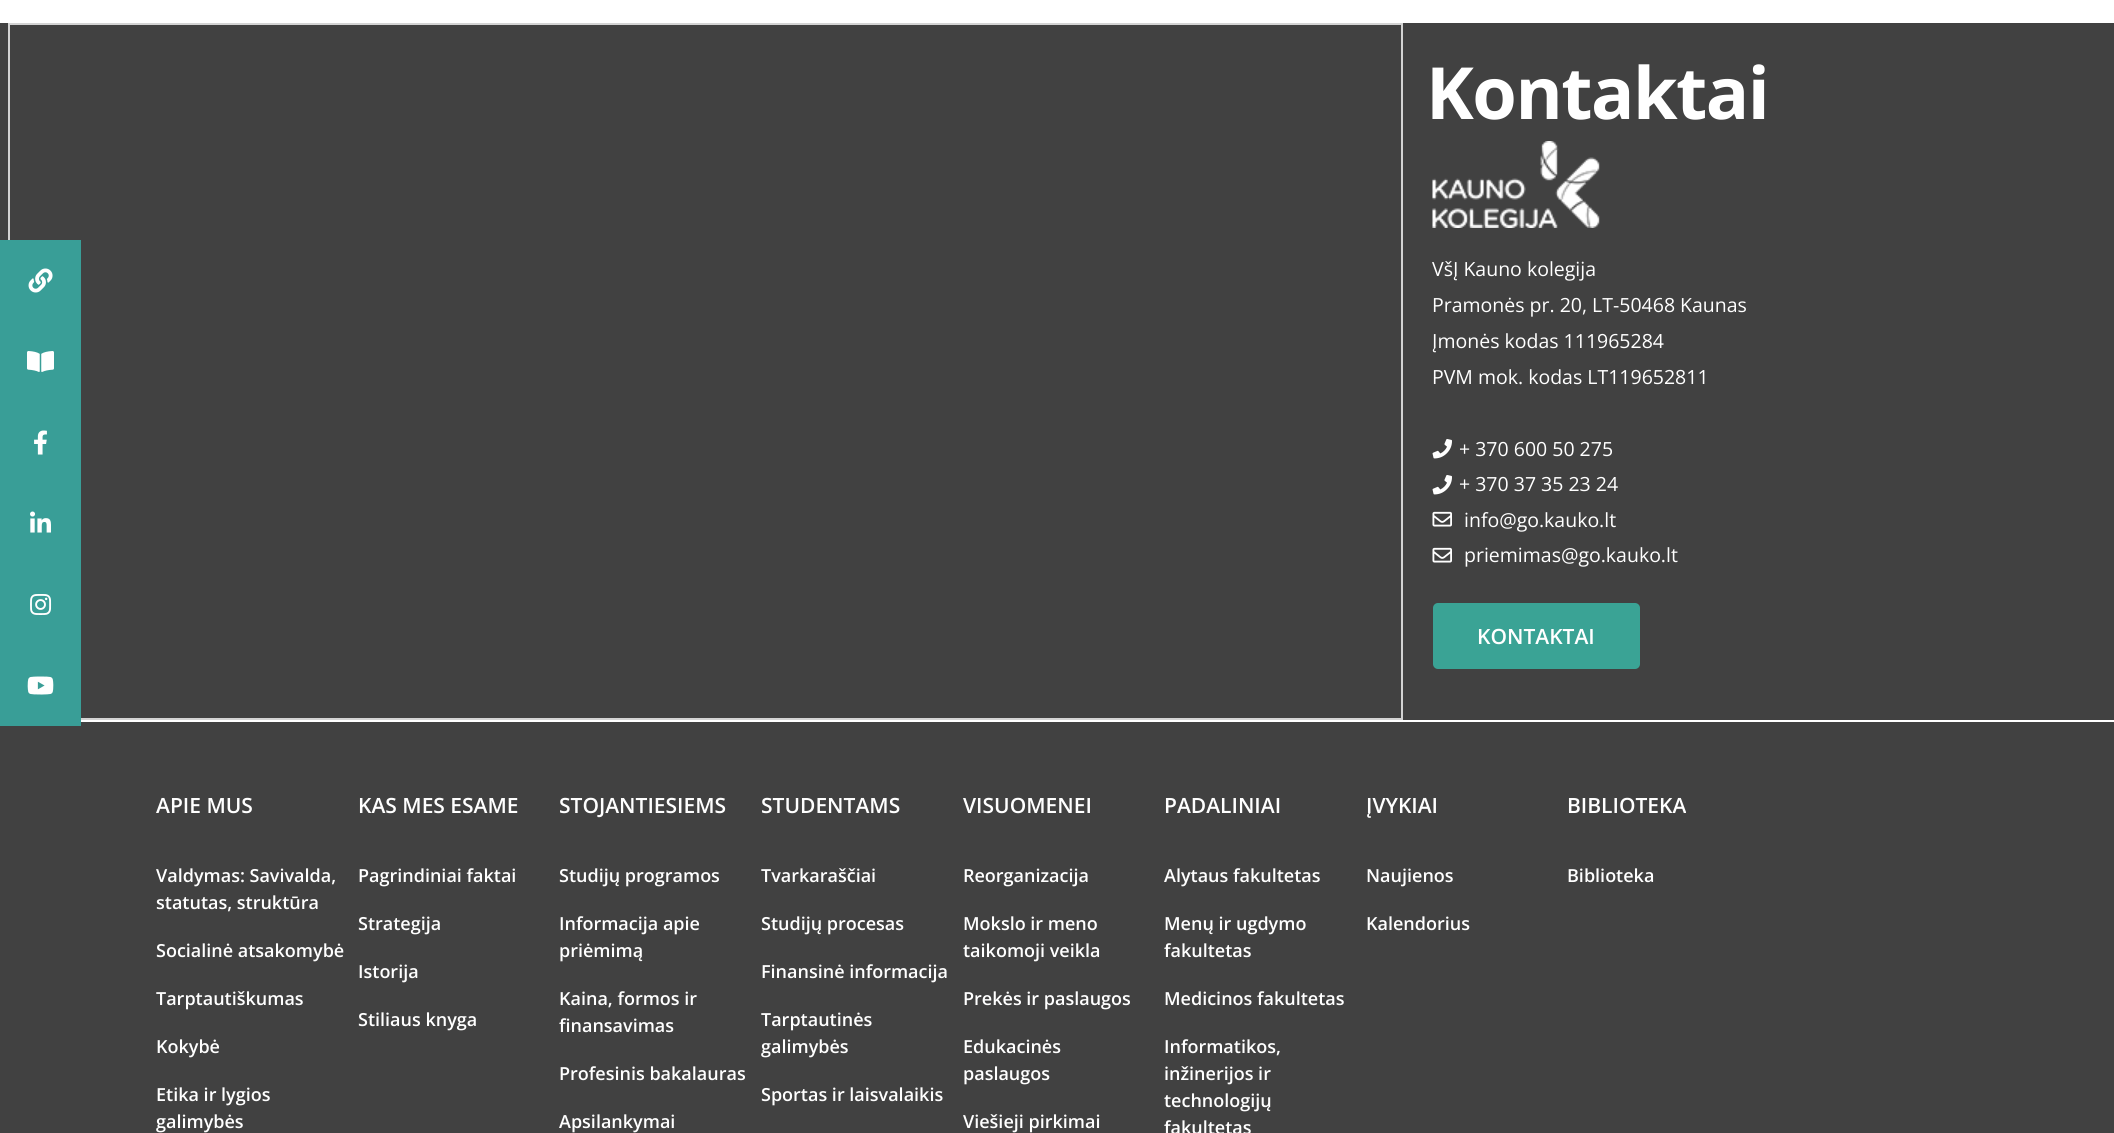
import math
import cairocffi as cairo

surface = cairo.ImageSurface(cairo.FORMAT_RGB24, 2114, 1133)
cr = cairo.Context(surface)
options = cairo.FontOptions()
options.set_hint_metrics(cairo.HINT_METRICS_OFF)
options.set_hint_style(cairo.HINT_STYLE_NONE)
cr.set_font_options(options)
cr.set_miter_limit(4)


def use_color(code):
    cr.set_source_rgb(*(v / 255 for v in bytes.fromhex(code[-6:])))


def spaced_text(x, y, s, letter, word):
    cr.move_to(x, y)
    for ch in s:
        cr.show_text(ch)
        cr.rel_move_to(letter + word * (ch == ' '), 0)


def round_rect(x, y, w, h, r):
    cr.new_sub_path()
    for i, (u, v) in enumerate([(x + w - r, y + h - r), (x + r, y + h - r), (x + r, y + r), (x + w - r, y + r)]):
        cr.arc(u, v, r, i * math.pi / 2, (i + 1) * math.pi / 2)
    cr.close_path()


def picture(path, x, y, w, h):
    cr.save()
    cr.set_source_surface(cairo.ImageSurface.create_from_png(path), x, y)
    cr.rectangle(x, y, w, h)
    cr.fill()
    cr.restore()


use_color("#ffffff")
cr.paint()
use_color("#414141")
cr.rectangle(0, 23, 2114, 697)
cr.fill()
cr.rectangle(9, 24, 1393, 695)
use_color("#d3d3d3")
cr.stroke()
use_color("#414141")
cr.rectangle(0, 722, 2114, 411)
cr.fill()
use_color("#399e97")
cr.rectangle(0, 240, 81, 486)
cr.fill()
picture("img1.png", 28, 268, 25, 25)
picture("img2.png", 27, 351, 27, 21)
picture("img3.png", 34, 430, 13, 25)
picture("img4.png", 30, 511, 21, 22)
picture("img5.png", 30, 594, 22, 21)
picture("img6.png", 27, 676, 27, 19)
cr.select_font_face("Open Sans", cairo.FONT_SLANT_NORMAL, cairo.FONT_WEIGHT_BOLD)
cr.set_font_size(72)
use_color("#ffffff")
spaced_text(1426, 119, "Kontaktai", -1.5, 0)
picture("img7.png", 1432, 141, 168, 87)
cr.select_font_face("Open Sans")
cr.set_font_size(19.5)
cr.move_to(1432, 276)
cr.show_text("VšĮ Kauno kolegija")
cr.move_to(1432, 312)
cr.show_text("Pramonės pr. 20, LT-50468 Kaunas")
cr.move_to(1432, 348)
cr.show_text("Įmonės kodas 111965284")
cr.move_to(1432, 384)
cr.show_text("PVM mok. kodas LT119652811")
picture("img8.png", 1432, 439, 20, 20)
cr.move_to(1459, 456)
cr.show_text("+ 370 600 50 275")
picture("img8.png", 1432, 475, 20, 20)
cr.move_to(1459, 491)
cr.show_text("+ 370 37 35 23 24")
picture("img9.png", 1432, 511, 20, 16)
cr.move_to(1464, 527)
cr.show_text("info@go.kauko.lt")
picture("img9.png", 1432, 547, 20, 16)
cr.move_to(1464, 562)
cr.show_text("priemimas@go.kauko.lt")
use_color("#3aa395")
round_rect(1433, 603, 207, 66, 5)
cr.fill()
cr.select_font_face("Open Sans SemiBold")
cr.set_font_size(21)
use_color("#ffffff")
cr.move_to(1477, 644)
cr.show_text("KONTAKTAI")
cr.move_to(156, 813)
cr.show_text("APIE MUS")
cr.set_font_size(18)
cr.move_to(156, 882)
cr.show_text("Valdymas: Savivalda,")
cr.move_to(156, 909)
cr.show_text("statutas, struktūra")
cr.move_to(156, 957)
cr.show_text("Socialinė atsakomybė")
cr.move_to(156, 1005)
cr.show_text("Tarptautiškumas")
cr.move_to(156, 1053)
cr.show_text("Kokybė")
cr.move_to(156, 1101)
cr.show_text("Etika ir lygios")
cr.move_to(156, 1128)
cr.show_text("galimybės")
cr.set_font_size(21)
cr.move_to(358, 813)
cr.show_text("KAS MES ESAME")
cr.set_font_size(18)
cr.move_to(358, 882)
cr.show_text("Pagrindiniai faktai")
cr.move_to(358, 930)
cr.show_text("Strategija")
cr.move_to(358, 978)
cr.show_text("Istorija")
cr.move_to(358, 1026)
cr.show_text("Stiliaus knyga")
cr.set_font_size(21)
cr.move_to(559, 813)
cr.show_text("STOJANTIESIEMS")
cr.set_font_size(18)
cr.move_to(559, 882)
cr.show_text("Studijų programos")
cr.move_to(559, 930)
cr.show_text("Informacija apie")
cr.move_to(559, 957)
cr.show_text("priėmimą")
cr.move_to(559, 1005)
cr.show_text("Kaina, formos ir")
cr.move_to(559, 1032)
cr.show_text("finansavimas")
cr.move_to(559, 1080)
cr.show_text("Profesinis bakalauras")
cr.move_to(559, 1128)
cr.show_text("Apsilankymai")
cr.set_font_size(21)
cr.move_to(761, 813)
cr.show_text("STUDENTAMS")
cr.set_font_size(18)
cr.move_to(761, 882)
cr.show_text("Tvarkaraščiai")
cr.move_to(761, 930)
cr.show_text("Studijų procesas")
cr.move_to(761, 978)
cr.show_text("Finansinė informacija")
cr.move_to(761, 1026)
cr.show_text("Tarptautinės")
cr.move_to(761, 1053)
cr.show_text("galimybės")
cr.move_to(761, 1101)
cr.show_text("Sportas ir laisvalaikis")
cr.set_font_size(21)
cr.move_to(963, 813)
cr.show_text("VISUOMENEI")
cr.set_font_size(18)
cr.move_to(963, 882)
cr.show_text("Reorganizacija")
cr.move_to(963, 930)
cr.show_text("Mokslo ir meno")
cr.move_to(963, 957)
cr.show_text("taikomoji veikla")
cr.move_to(963, 1005)
cr.show_text("Prekės ir paslaugos")
cr.move_to(963, 1053)
cr.show_text("Edukacinės")
cr.move_to(963, 1080)
cr.show_text("paslaugos")
cr.move_to(963, 1128)
cr.show_text("Viešieji pirkimai")
cr.set_font_size(21)
cr.move_to(1164, 813)
cr.show_text("PADALINIAI")
cr.set_font_size(18)
cr.move_to(1164, 882)
cr.show_text("Alytaus fakultetas")
cr.move_to(1164, 930)
cr.show_text("Menų ir ugdymo")
cr.move_to(1164, 957)
cr.show_text("fakultetas")
cr.move_to(1164, 1005)
cr.show_text("Medicinos fakultetas")
cr.move_to(1164, 1053)
cr.show_text("Informatikos,")
cr.move_to(1164, 1080)
cr.show_text("inžinerijos ir")
cr.move_to(1164, 1107)
cr.show_text("technologijų")
cr.move_to(1164, 1134)
cr.show_text("fakultetas")
cr.set_font_size(21)
cr.move_to(1366, 813)
cr.show_text("ĮVYKIAI")
cr.set_font_size(18)
cr.move_to(1366, 882)
cr.show_text("Naujienos")
cr.move_to(1366, 930)
cr.show_text("Kalendorius")
cr.set_font_size(21)
cr.move_to(1567, 813)
cr.show_text("BIBLIOTEKA")
cr.set_font_size(18)
cr.move_to(1567, 882)
cr.show_text("Biblioteka")
surface.write_to_png("result.png")
